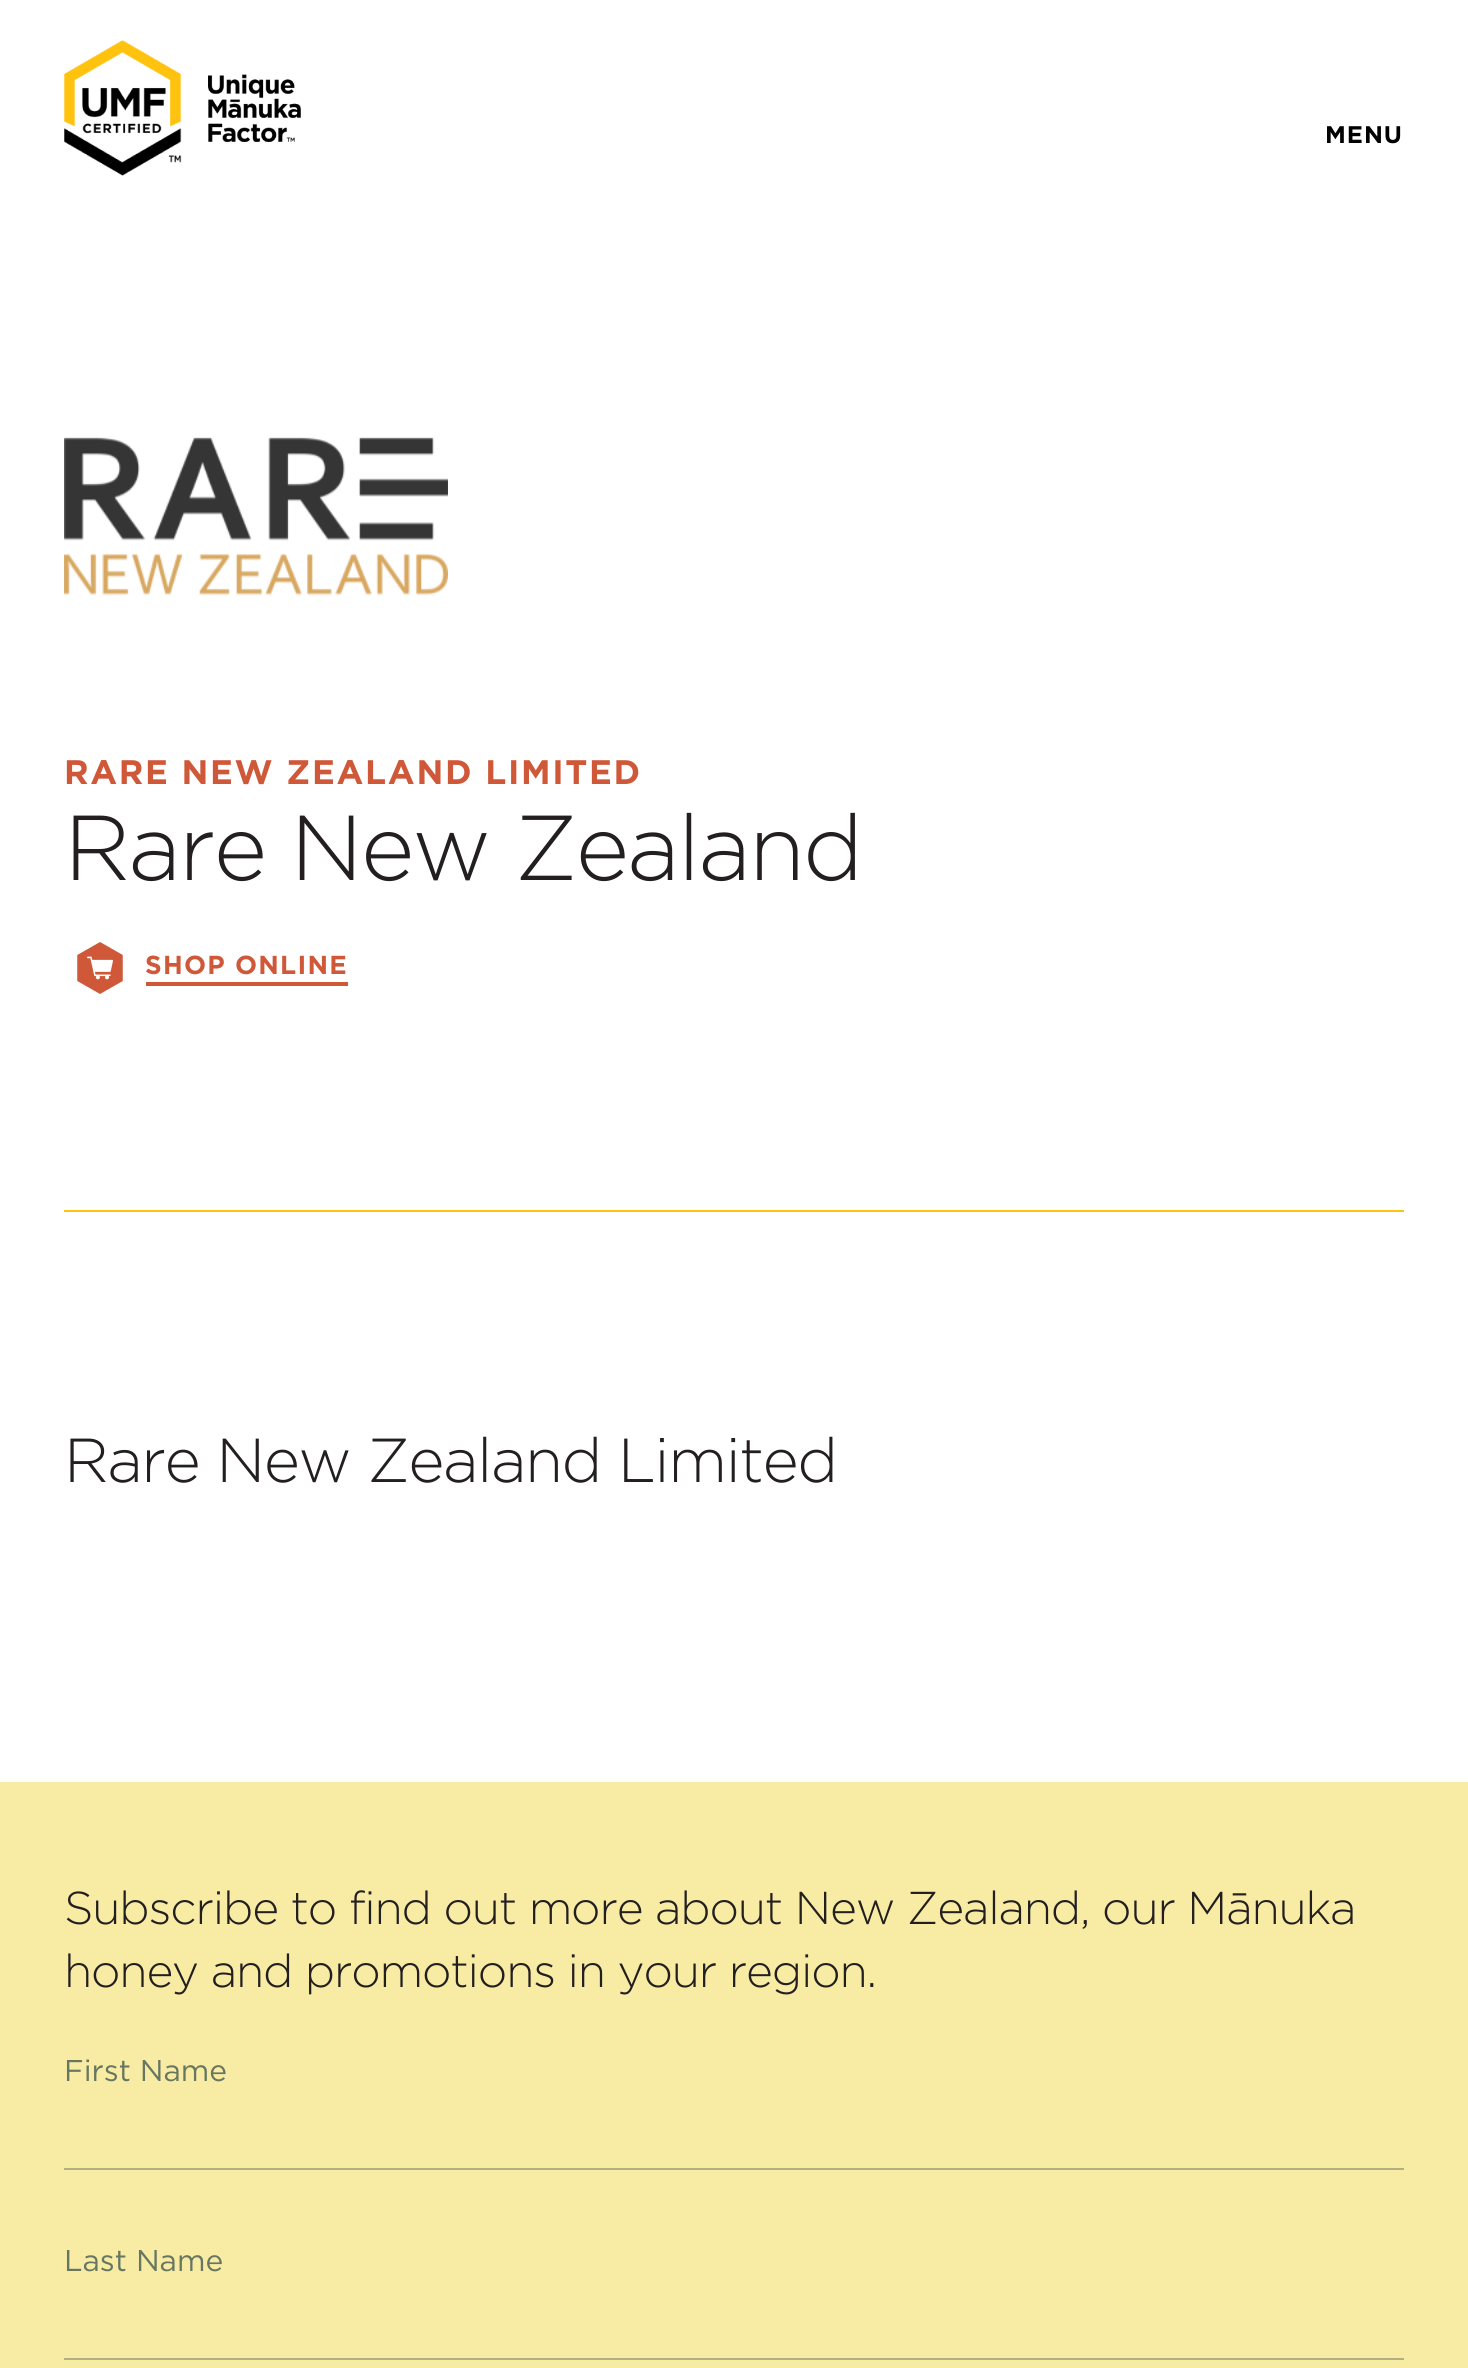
import math
import cairocffi as cairo

surface = cairo.ImageSurface(cairo.FORMAT_RGB24, 1468, 2368)
cr = cairo.Context(surface)
options = cairo.FontOptions()
options.set_hint_metrics(cairo.HINT_METRICS_OFF)
options.set_hint_style(cairo.HINT_STYLE_NONE)
cr.set_font_options(options)
cr.set_miter_limit(4)


def use_color(code):
    cr.set_source_rgb(*(v / 255 for v in bytes.fromhex(code[-6:])))


def spaced_text(x, y, s, letter, word):
    cr.move_to(x, y)
    for ch in s:
        cr.show_text(ch)
        cr.rel_move_to(letter + word * (ch == ' '), 0)


def picture(path, x, y, w, h):
    cr.save()
    cr.set_source_surface(cairo.ImageSurface.create_from_png(path), x, y)
    cr.rectangle(x, y, w, h)
    cr.fill()
    cr.restore()


use_color("#ffffff")
cr.paint()
picture("img1.png", 64, 40, 237, 136)
cr.select_font_face("Gotham", cairo.FONT_SLANT_NORMAL, cairo.FONT_WEIGHT_BOLD)
cr.set_font_size(24)
use_color("#000000")
spaced_text(1325, 143, "MENU", 1, 0)
picture("img2.png", 64, 437, 384, 159)
cr.set_font_size(34)
use_color("#cf5839")
spaced_text(64, 784, "RARE NEW ZEALAND LIMITED", 1.7, 0)
cr.select_font_face("Gotham Light")
cr.set_font_size(92)
use_color("#231f20")
spaced_text(64, 880, "Rare New Zealand", -2.25, 0)
picture("img3.png", 77, 942, 46, 52)
cr.select_font_face("Gotham", cairo.FONT_SLANT_NORMAL, cairo.FONT_WEIGHT_BOLD)
cr.set_font_size(26)
use_color("#cf5839")
spaced_text(145, 974, "SHOP ONLINE", 1.25, 0)
cr.rectangle(146, 982, 202, 4)
cr.fill()
use_color("#ffc20e")
cr.rectangle(64, 1210, 1340, 2)
cr.fill()
cr.select_font_face("Gotham Light")
cr.set_font_size(62)
use_color("#231f20")
spaced_text(64, 1482, "Rare New Zealand Limited", -1.55, 0)
use_color("#f8eba4")
cr.rectangle(0, 1782, 1468, 586)
cr.fill()
cr.set_font_size(46)
use_color("#231f20")
spaced_text(64, 1924, "Subscribe to find out more about New Zealand, our Mānuka", -1.15, 0)
spaced_text(64, 1987, "honey and promotions in your region.", -1.15, 0)
cr.select_font_face("Gotham")
cr.set_font_size(30)
use_color("#667660")
cr.move_to(64, 2081)
cr.show_text("First Name")
use_color("#afb182")
cr.rectangle(64, 2168, 1340, 2)
cr.fill()
use_color("#667660")
cr.move_to(64, 2271)
cr.show_text("Last Name")
use_color("#afb182")
cr.rectangle(64, 2358, 1340, 2)
cr.fill()
surface.write_to_png("result.png")
